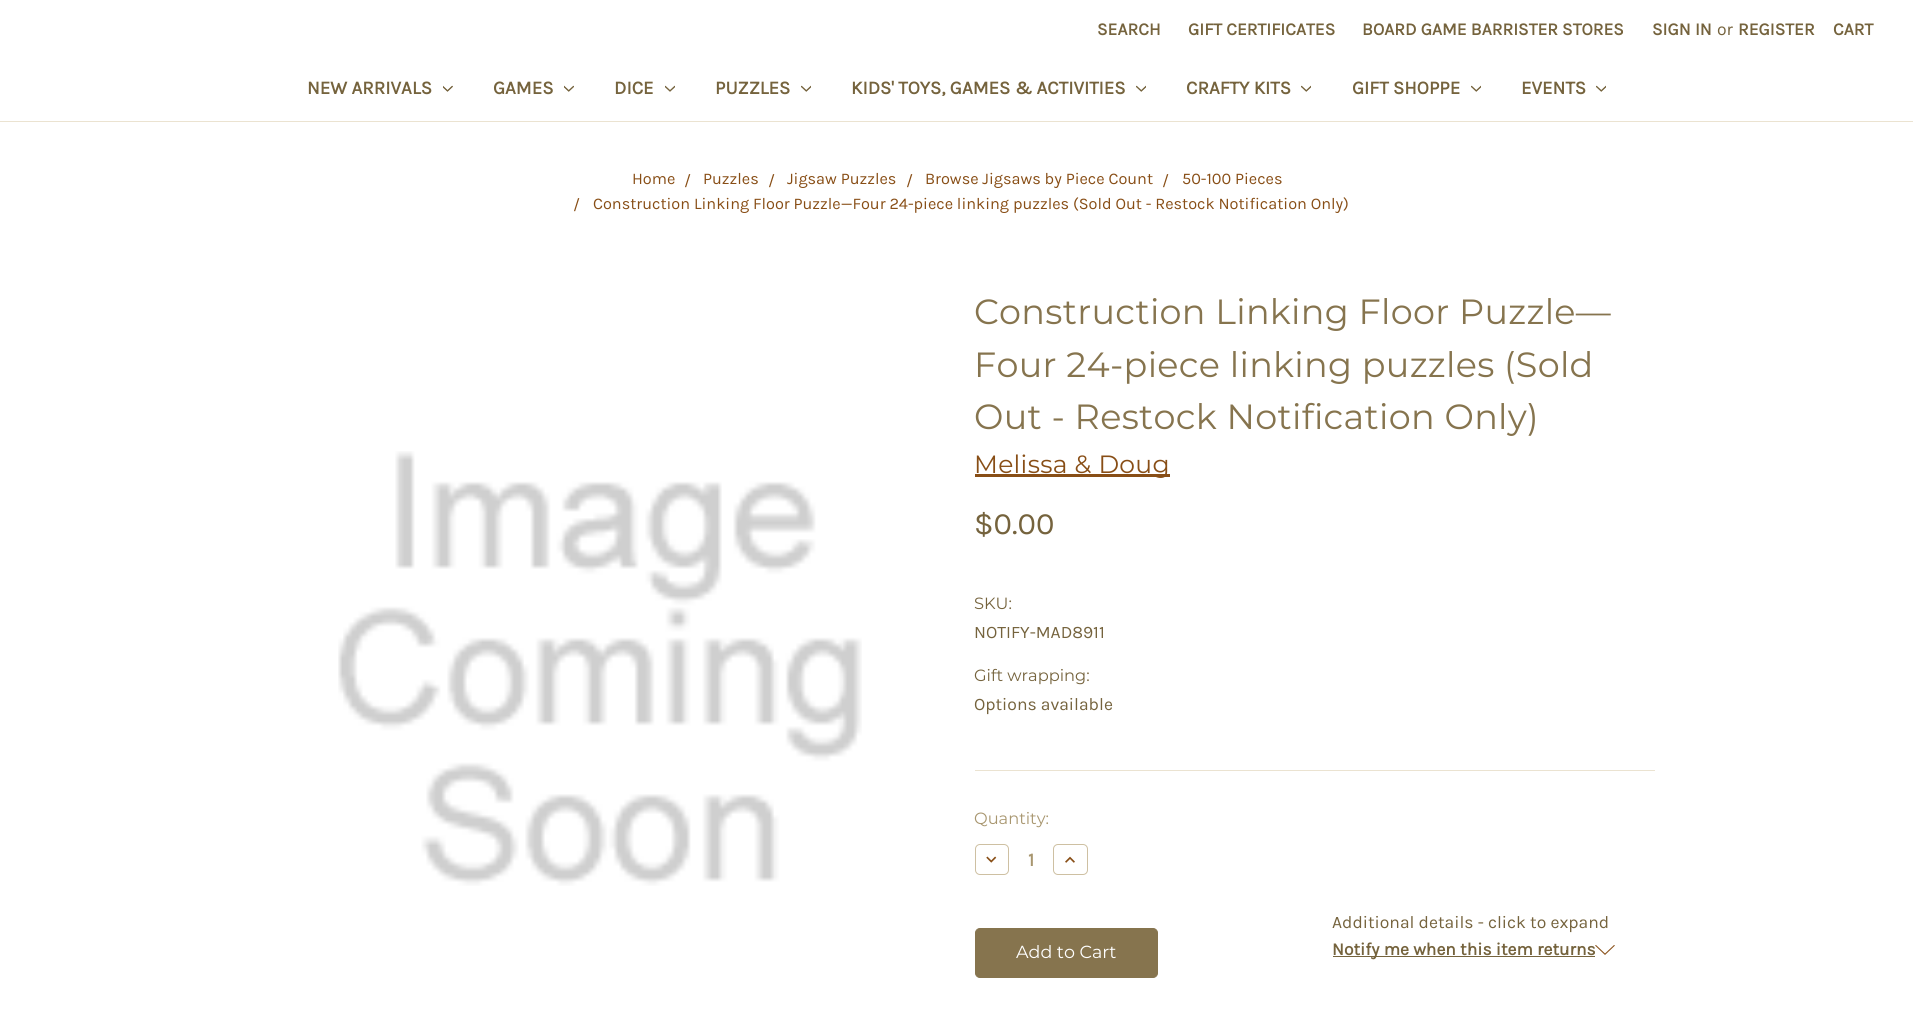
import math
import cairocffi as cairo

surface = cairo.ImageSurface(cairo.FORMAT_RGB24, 1913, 1019)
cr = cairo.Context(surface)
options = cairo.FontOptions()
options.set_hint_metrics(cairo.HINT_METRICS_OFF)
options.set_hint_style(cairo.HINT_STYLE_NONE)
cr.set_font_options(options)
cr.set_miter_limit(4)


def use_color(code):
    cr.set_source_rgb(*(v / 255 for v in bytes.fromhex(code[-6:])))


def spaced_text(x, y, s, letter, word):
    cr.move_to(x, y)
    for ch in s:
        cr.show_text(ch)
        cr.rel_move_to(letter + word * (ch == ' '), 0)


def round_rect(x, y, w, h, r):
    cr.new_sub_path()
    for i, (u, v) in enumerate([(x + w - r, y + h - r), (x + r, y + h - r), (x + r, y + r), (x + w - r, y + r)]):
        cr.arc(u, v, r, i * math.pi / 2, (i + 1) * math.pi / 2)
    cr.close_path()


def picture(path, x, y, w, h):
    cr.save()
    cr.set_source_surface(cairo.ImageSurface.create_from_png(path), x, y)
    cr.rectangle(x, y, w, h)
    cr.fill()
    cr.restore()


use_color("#ffffff")
cr.paint()
use_color("#ebe3d1")
cr.rectangle(0, 121, 1913, 1)
cr.fill()
cr.select_font_face("Karla", cairo.FONT_SLANT_NORMAL, cairo.FONT_WEIGHT_BOLD)
cr.set_font_size(17.5)
use_color("#75633d")
cr.move_to(1097, 35)
cr.show_text("SEARCH")
cr.move_to(1188, 35)
cr.show_text("GIFT CERTIFICATES")
cr.move_to(1362, 35)
cr.show_text("BOARD GAME BARRISTER STORES")
cr.move_to(1652, 35)
cr.show_text("SIGN IN")
cr.select_font_face("Karla")
cr.move_to(1717, 35)
cr.show_text("or")
cr.select_font_face("Karla", cairo.FONT_SLANT_NORMAL, cairo.FONT_WEIGHT_BOLD)
cr.move_to(1738, 35)
cr.show_text("REGISTER")
cr.move_to(1833, 35)
cr.show_text("CART")
cr.set_font_size(18.75)
cr.move_to(307, 94)
cr.show_text("NEW ARRIVALS")
picture("img1.png", 443, 85, 10, 7)
cr.move_to(493, 94)
cr.show_text("GAMES")
picture("img2.png", 564, 85, 10, 7)
cr.move_to(614, 94)
cr.show_text("DICE")
picture("img3.png", 665, 85, 10, 7)
cr.move_to(715, 94)
cr.show_text("PUZZLES")
picture("img4.png", 801, 85, 10, 7)
cr.move_to(851, 94)
cr.show_text("KIDS' TOYS, GAMES & ACTIVITIES")
picture("img4.png", 1136, 85, 10, 7)
cr.move_to(1186, 94)
cr.show_text("CRAFTY KITS")
picture("img4.png", 1301, 85, 10, 7)
cr.move_to(1352, 94)
cr.show_text("GIFT SHOPPE")
picture("img4.png", 1471, 85, 10, 7)
cr.move_to(1521, 94)
cr.show_text("EVENTS")
picture("img4.png", 1596, 85, 10, 7)
cr.select_font_face("Karla")
cr.set_font_size(16.25)
use_color("#884e16")
cr.move_to(632, 184)
cr.show_text("Home")
cr.move_to(684, 186)
cr.show_text("/")
cr.move_to(703, 184)
cr.show_text("Puzzles")
cr.move_to(768, 186)
cr.show_text("/")
cr.move_to(787, 184)
cr.show_text("Jigsaw Puzzles")
cr.move_to(906, 186)
cr.show_text("/")
cr.move_to(925, 184)
cr.show_text("Browse Jigsaws by Piece Count")
cr.move_to(1162, 186)
cr.show_text("/")
cr.move_to(1182, 184)
cr.show_text("50-100 Pieces")
cr.move_to(573, 210)
cr.show_text("/")
cr.move_to(593, 209)
cr.show_text("Construction Linking Floor Puzzle—Four 24-piece linking puzzles (Sold Out - Restock Notification Only)")
picture("img5.png", 338, 451, 524, 435)
use_color("#ebe3d1")
cr.rectangle(975, 770, 680, 1)
cr.fill()
cr.select_font_face("Montserrat")
cr.set_font_size(35)
use_color("#86744e")
spaced_text(974, 324, "Construction Linking Floor Puzzle—", 0.3, 0)
spaced_text(974, 377, "Four 24-piece linking puzzles (Sold", 0.3, 0)
spaced_text(974, 429, "Out - Restock Notification Only)", 0.3, 0)
use_color("#884e16")
cr.rectangle(975, 474, 195, 3)
cr.fill()
cr.set_font_size(25)
spaced_text(974, 473, "Melissa & Doug", 0.3, 0)
cr.select_font_face("Karla")
cr.set_font_size(31)
use_color("#75633d")
cr.move_to(974, 534)
cr.show_text("$0.00")
cr.select_font_face("Montserrat")
cr.set_font_size(16.25)
cr.move_to(974, 609)
cr.show_text("SKU:")
cr.select_font_face("Karla")
cr.set_font_size(17.5)
cr.move_to(974, 638)
cr.show_text("NOTIFY-MAD8911")
cr.select_font_face("Montserrat")
cr.set_font_size(16.25)
cr.move_to(974, 681)
cr.show_text("Gift wrapping:")
cr.select_font_face("Karla")
cr.set_font_size(17.5)
cr.move_to(974, 710)
cr.show_text("Options available")
cr.select_font_face("Montserrat")
cr.set_font_size(16.25)
use_color("#a8966f")
cr.move_to(974, 824)
cr.show_text("Quantity:")
round_rect(975.5, 844.5, 33, 30, 4.5)
use_color("#cec0a2")
cr.set_line_width(1)
cr.stroke()
picture("img6.png", 986, 856, 11, 7)
cr.select_font_face("Karla", cairo.FONT_SLANT_NORMAL, cairo.FONT_WEIGHT_BOLD)
cr.set_font_size(18.75)
use_color("#a8966f")
cr.move_to(1028, 866)
cr.show_text("1")
round_rect(1053.5, 844.5, 34, 30, 4.5)
use_color("#cec0a2")
cr.stroke()
picture("img7.png", 1065, 856, 10, 7)
use_color("#86744e")
round_rect(975.5, 928.5, 182, 49, 4.5)
cr.fill_preserve()
cr.stroke()
cr.select_font_face("Montserrat")
cr.set_font_size(17.5)
use_color("#ffffff")
cr.move_to(1016, 958)
cr.show_text("Add to Cart")
cr.select_font_face("Karla")
use_color("#75633d")
cr.move_to(1332, 928)
cr.show_text("Additional details - click to expand")
cr.rectangle(1333, 956, 262, 1)
cr.fill()
cr.select_font_face("Karla", cairo.FONT_SLANT_NORMAL, cairo.FONT_WEIGHT_BOLD)
cr.move_to(1332, 955)
cr.show_text("Notify me when this item returns")
use_color("#884e16")
cr.set_fill_rule(cairo.FILL_RULE_EVEN_ODD)
cr.new_path()
cr.move_to(1605, 953.5)
cr.line_to(1614, 945)
cr.line_to(1615, 945.5)
cr.line_to(1605, 955)
cr.line_to(1595, 945.5)
cr.line_to(1596, 945)
cr.close_path()
cr.fill()
surface.write_to_png("result.png")
